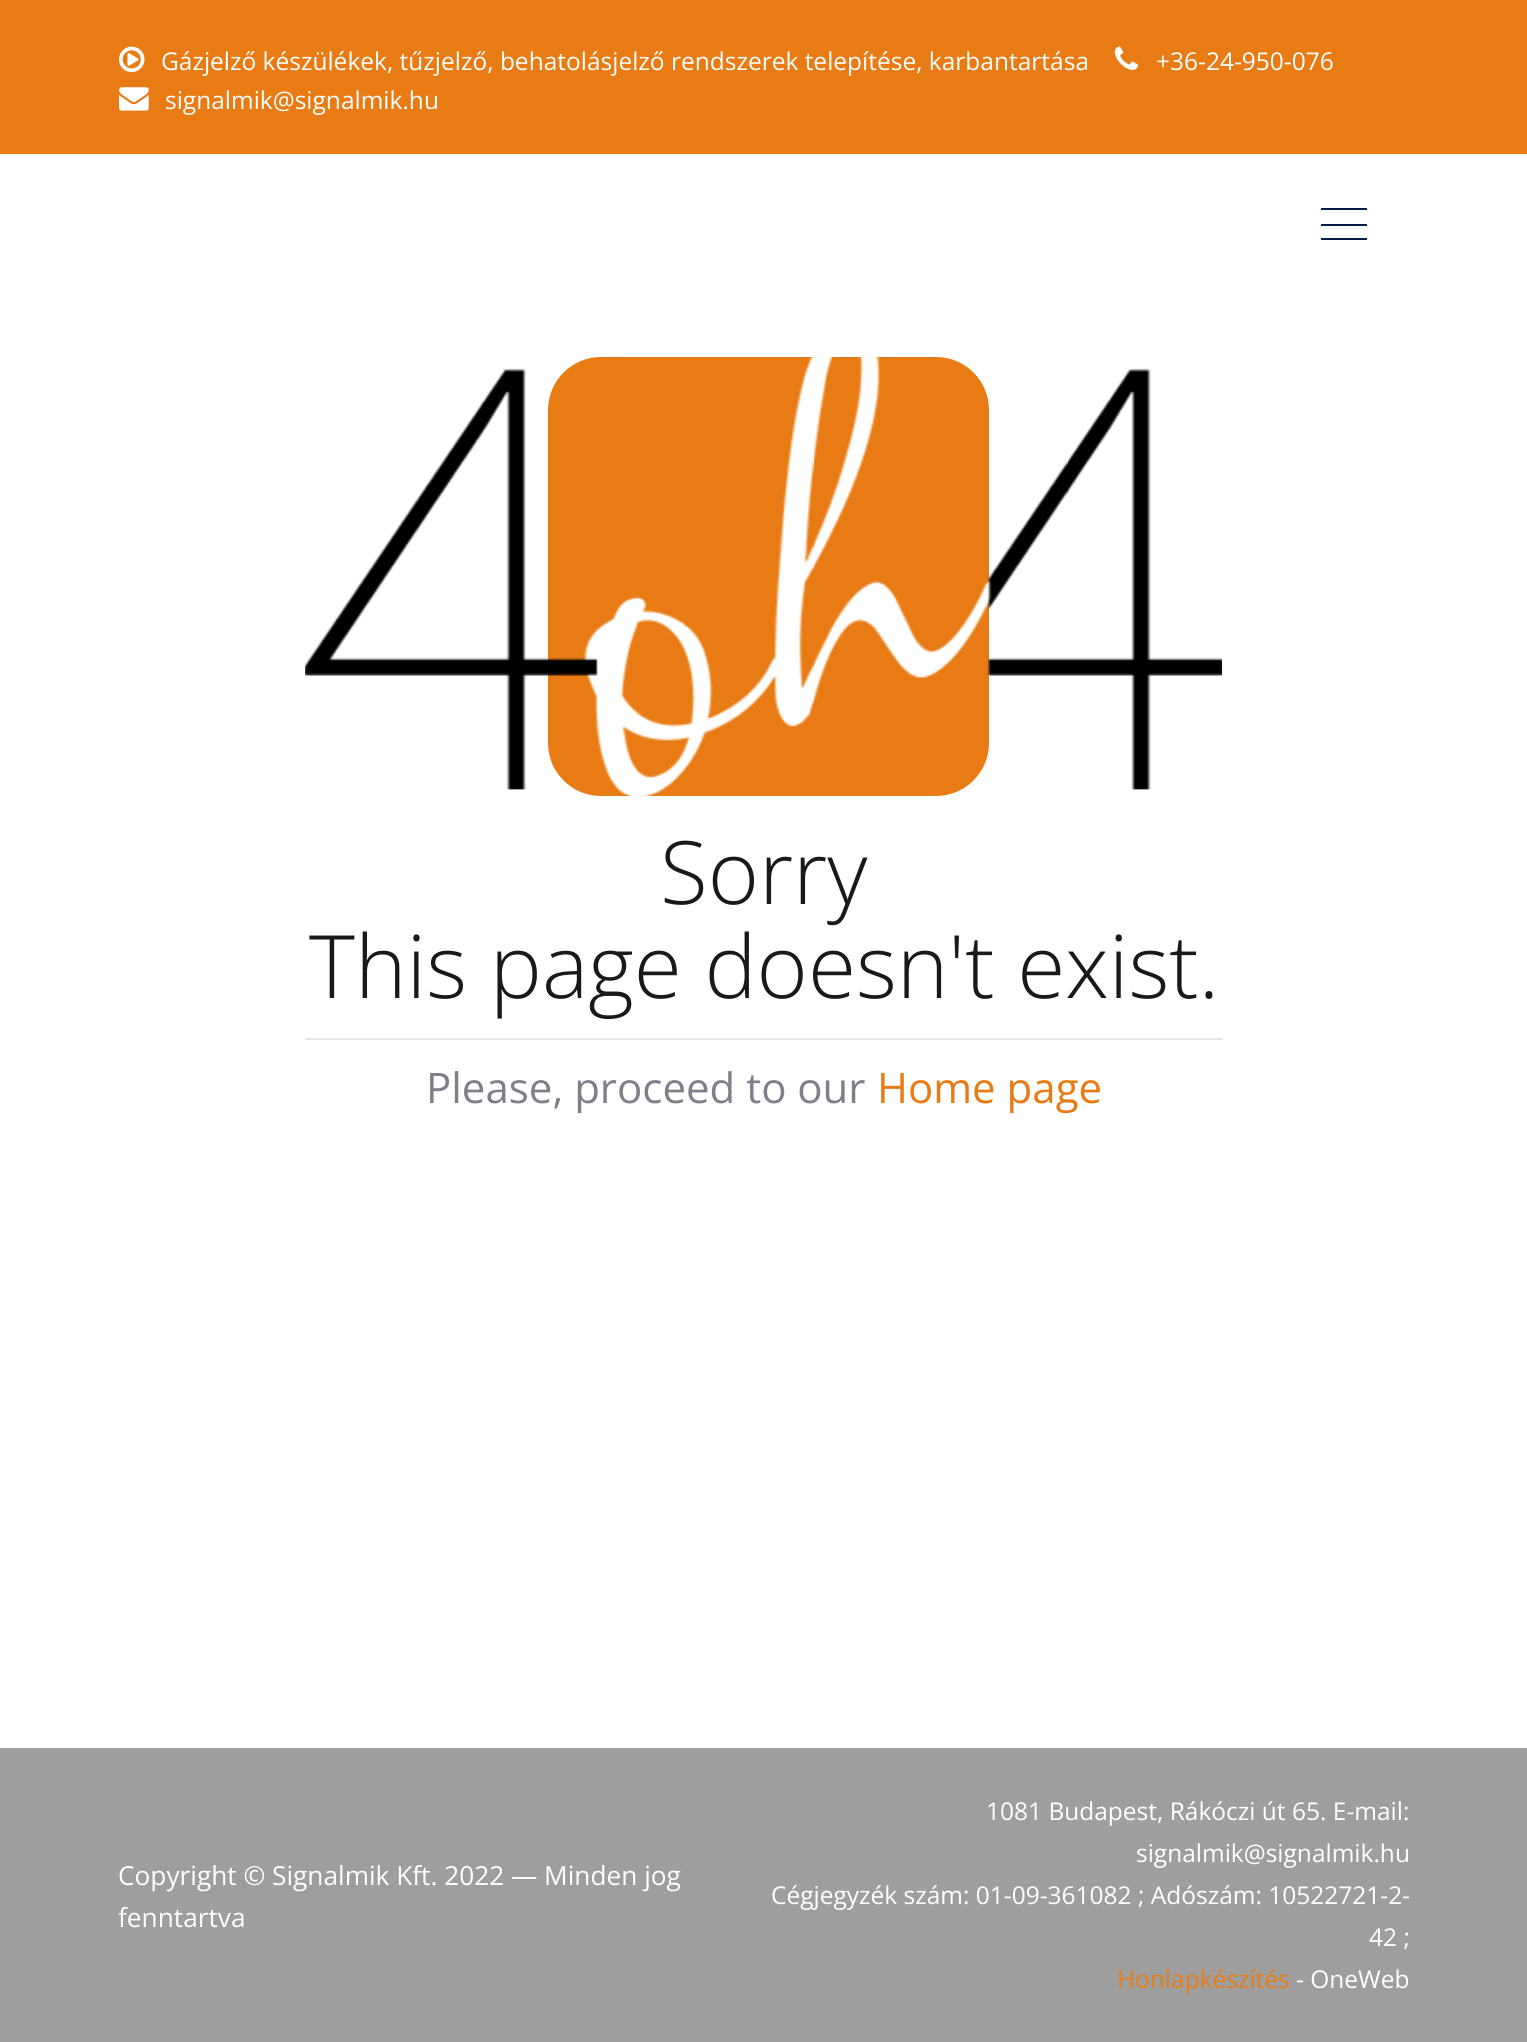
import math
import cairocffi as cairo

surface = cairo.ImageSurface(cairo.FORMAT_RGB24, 1527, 2042)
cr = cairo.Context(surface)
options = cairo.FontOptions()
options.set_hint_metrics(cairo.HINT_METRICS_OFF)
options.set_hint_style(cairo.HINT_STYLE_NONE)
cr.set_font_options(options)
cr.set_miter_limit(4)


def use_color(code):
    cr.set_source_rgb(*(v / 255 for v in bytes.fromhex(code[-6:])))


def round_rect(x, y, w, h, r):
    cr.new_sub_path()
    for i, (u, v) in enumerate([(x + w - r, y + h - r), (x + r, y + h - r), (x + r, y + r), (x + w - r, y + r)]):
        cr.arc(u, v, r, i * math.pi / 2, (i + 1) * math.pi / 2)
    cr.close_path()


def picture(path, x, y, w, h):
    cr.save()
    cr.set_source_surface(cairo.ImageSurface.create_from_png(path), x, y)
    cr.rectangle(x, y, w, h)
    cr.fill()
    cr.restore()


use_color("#ffffff")
cr.paint()
use_color("#e87b14")
cr.rectangle(0, 0, 1527, 154)
cr.fill()
picture("img1.png", 119, 46, 26, 27)
cr.select_font_face("Open Sans")
cr.set_font_size(24.5)
use_color("#ffffff")
cr.move_to(161, 70)
cr.show_text("Gázjelző készülékek, tűzjelző, behatolásjelző rendszerek telepítése, karbantartása")
picture("img2.png", 1114, 46, 25, 24)
cr.move_to(1156, 70)
cr.show_text("+36-24-950-076")
picture("img3.png", 119, 87, 30, 24)
cr.move_to(165, 109)
cr.show_text("signalmik@signalmik.hu")
use_color("#021a47")
cr.rectangle(1321, 208, 46, 2)
cr.fill()
cr.rectangle(1321, 224, 46, 2)
cr.fill()
cr.rectangle(1321, 238, 46, 2)
cr.fill()
use_color("#e87b14")
round_rect(548, 357, 441, 439, 53)
cr.fill()
picture("img4.png", 305, 357, 917, 439)
cr.select_font_face("Open Sans Light")
cr.set_font_size(87.5)
use_color("#191919")
cr.move_to(660, 904)
cr.show_text("Sorry")
cr.move_to(309, 998)
cr.show_text("This page doesn't exist.")
use_color("#e5e5e5")
cr.rectangle(305, 1038, 918, 2)
cr.fill()
cr.select_font_face("Open Sans")
cr.set_font_size(42)
use_color("#7f7f8a")
cr.move_to(426, 1103)
cr.show_text("Please, proceed to our")
use_color("#e87b14")
cr.move_to(877, 1103)
cr.show_text("Home page")
use_color("#9e9e9e")
cr.rectangle(0, 1748, 1527, 294)
cr.fill()
cr.set_font_size(26.25)
use_color("#ffffff")
cr.move_to(118, 1885)
cr.show_text("Copyright © Signalmik Kft. 2022 — Minden jog")
cr.move_to(118, 1927)
cr.show_text("fenntartva")
cr.set_font_size(24.5)
cr.move_to(986, 1820)
cr.show_text("1081 Budapest, Rákóczi út 65. E-mail:")
cr.move_to(1136, 1862)
cr.show_text("signalmik@signalmik.hu")
cr.move_to(771, 1904)
cr.show_text("Cégjegyzék szám: 01-09-361082 ; Adószám: 10522721-2-")
cr.move_to(1369, 1946)
cr.show_text("42 ;")
use_color("#e87b14")
cr.move_to(1117, 1988)
cr.show_text("Honlapkészítés")
use_color("#ffffff")
cr.move_to(1296, 1988)
cr.show_text("- OneWeb")
surface.write_to_png("result.png")
